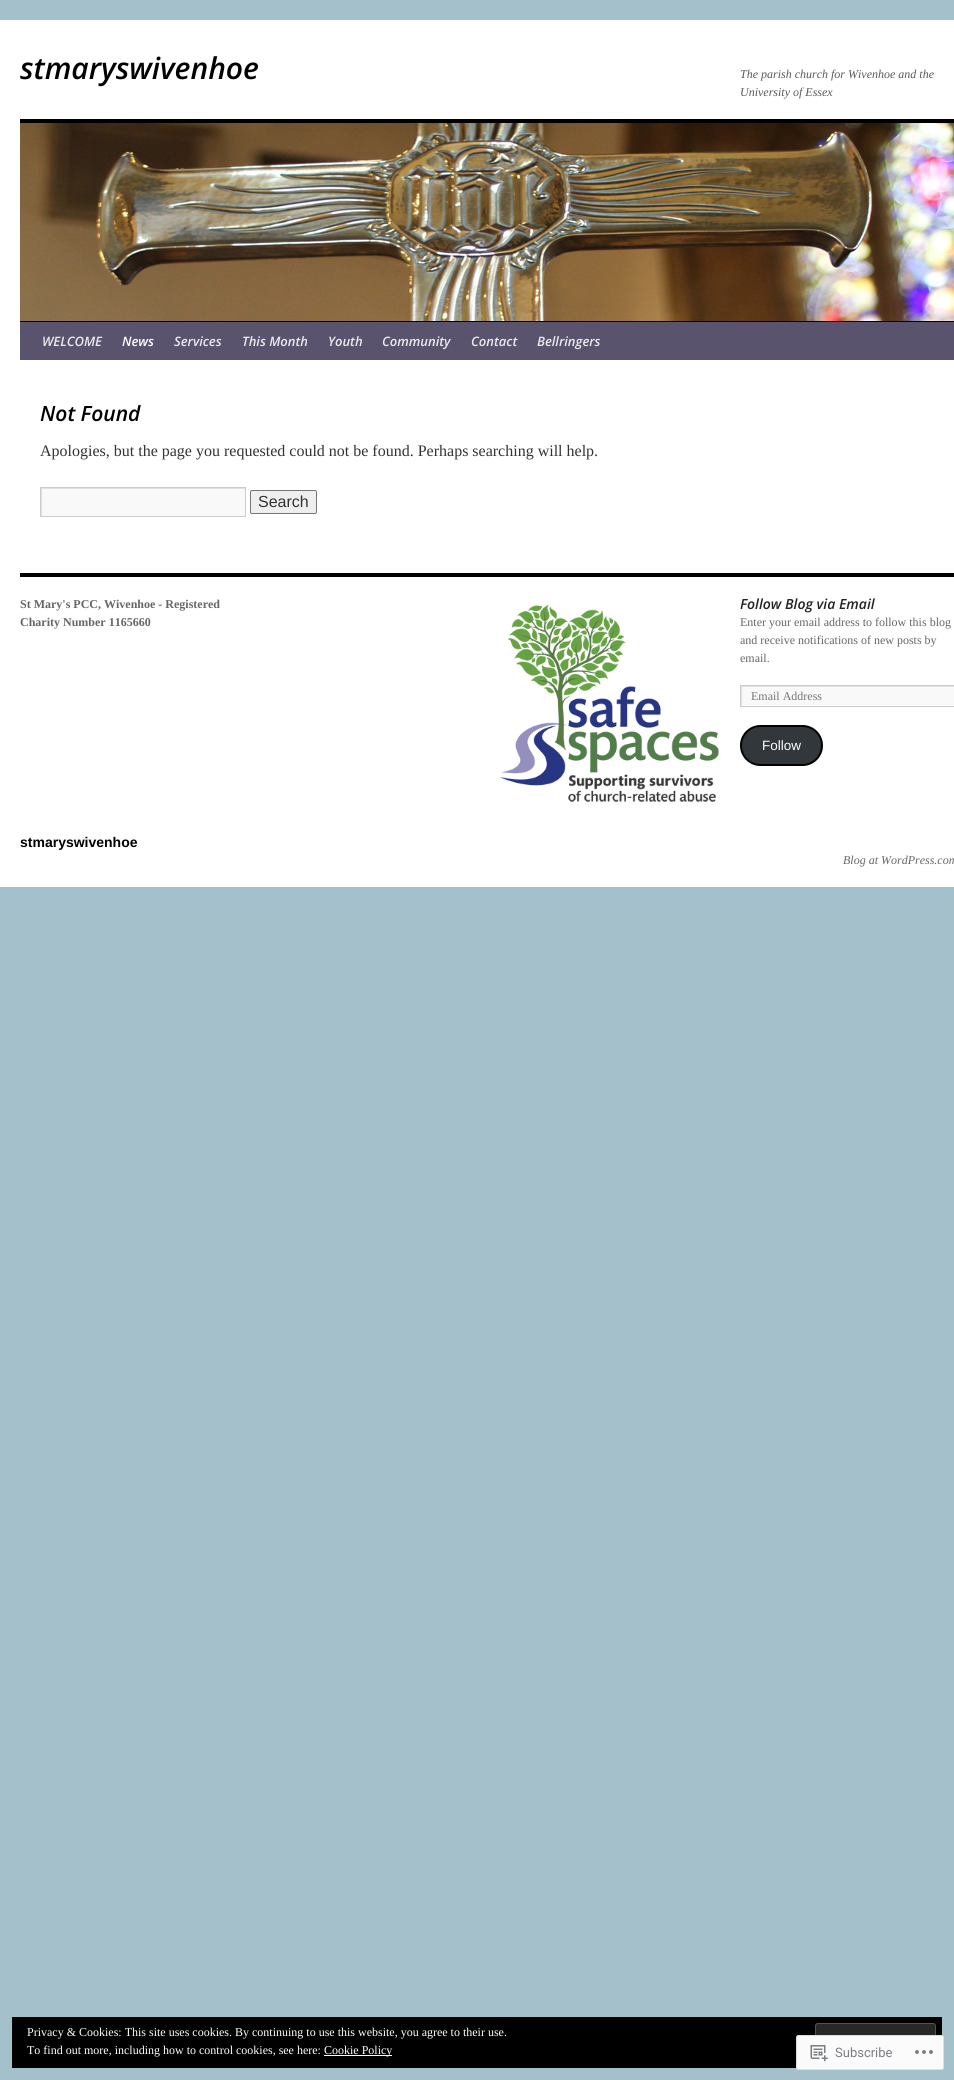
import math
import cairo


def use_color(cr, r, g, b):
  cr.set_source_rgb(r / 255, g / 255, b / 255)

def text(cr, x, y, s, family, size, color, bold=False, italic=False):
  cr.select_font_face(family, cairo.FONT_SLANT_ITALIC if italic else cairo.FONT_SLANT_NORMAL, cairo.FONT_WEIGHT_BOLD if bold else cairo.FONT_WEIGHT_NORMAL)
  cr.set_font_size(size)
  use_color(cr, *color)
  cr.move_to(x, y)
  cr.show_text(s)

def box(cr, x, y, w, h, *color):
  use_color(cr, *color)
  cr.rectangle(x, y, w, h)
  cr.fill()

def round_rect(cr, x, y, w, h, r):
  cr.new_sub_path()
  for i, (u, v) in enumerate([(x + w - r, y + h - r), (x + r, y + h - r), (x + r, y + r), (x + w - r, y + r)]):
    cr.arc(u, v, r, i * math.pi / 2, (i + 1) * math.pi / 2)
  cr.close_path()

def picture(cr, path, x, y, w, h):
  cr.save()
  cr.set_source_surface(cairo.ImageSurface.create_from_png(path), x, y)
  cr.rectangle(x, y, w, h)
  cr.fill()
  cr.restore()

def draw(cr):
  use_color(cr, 163, 192, 203)
  cr.paint()
  box(cr, 0, 20, 954, 867, 255, 255, 255)
  box(cr, 20, 119, 934, 4, 0, 0, 0)
  box(cr, 20, 321, 934, 1, 0, 0, 0)
  picture(cr, "img_01.png", 20, 123, 934, 198)
  box(cr, 20, 322, 934, 38, 90, 83, 110)
  box(cr, 42, 489, 203, 27, 249, 249, 249)
  cr.save()
  cr.rectangle(41, 488, 204, 28)
  cr.clip()
  use_color(cr, 224, 224, 224)
  cr.set_fill_rule(cairo.FILL_RULE_EVEN_ODD)
  cr.new_path()
  cr.move_to(-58, 389)
  cr.line_to(344, 389)
  cr.line_to(344, 615)
  cr.line_to(-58, 615)
  cr.close_path()
  cr.move_to(42, 489)
  cr.line_to(246, 489)
  cr.line_to(246, 517)
  cr.line_to(42, 517)
  cr.close_path()
  cr.fill()
  cr.restore()
  cr.rectangle(40.5, 487.5, 205, 29)
  use_color(cr, 204, 204, 204)
  cr.set_line_width(1)
  cr.stroke()
  use_color(cr, 239, 239, 239)
  round_rect(cr, 250.5, 490.5, 66, 23, 1.5)
  cr.fill_preserve()
  use_color(cr, 118, 118, 118)
  cr.stroke()
  box(cr, 20, 573, 934, 4, 0, 0, 0)
  picture(cr, "img_02.png", 500, 604, 219, 198)
  box(cr, 742, 687, 212, 19, 249, 249, 249)
  cr.save()
  cr.rectangle(741, 686, 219, 20)
  cr.clip()
  use_color(cr, 224, 224, 224)
  cr.set_fill_rule(cairo.FILL_RULE_EVEN_ODD)
  cr.new_path()
  cr.move_to(642, 587)
  cr.line_to(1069, 587)
  cr.line_to(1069, 805)
  cr.line_to(642, 805)
  cr.close_path()
  cr.move_to(742, 687)
  cr.line_to(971, 687)
  cr.line_to(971, 707)
  cr.line_to(742, 707)
  cr.close_path()
  cr.fill()
  cr.restore()
  cr.rectangle(740.5, 685.5, 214, 21)
  use_color(cr, 204, 204, 204)
  cr.stroke()
  use_color(cr, 50, 55, 60)
  round_rect(cr, 741, 726, 81, 39, 19.5)
  cr.fill_preserve()
  use_color(cr, 0, 0, 0)
  cr.set_line_width(2)
  cr.stroke()
  box(cr, 12, 2017, 930, 51, 0, 0, 0)
  use_color(cr, 40, 40, 40)
  round_rect(cr, 815.5, 2023.5, 120, 38, 2.5)
  cr.fill_preserve()
  use_color(cr, 83, 83, 83)
  cr.set_line_width(1)
  cr.stroke()
  box(cr, 324, 2055, 68, 1, 255, 255, 255)
  cr.set_source_rgba(1, 1, 1, 0.98)
  round_rect(cr, 796, 2035, 148, 35, 3)
  cr.fill()
  round_rect(cr, 796.5, 2035.5, 147, 34, 2.5)
  cr.set_source_rgba(0.863, 0.863, 0.871, 0.98)
  cr.stroke()
  picture(cr, "img_03.png", 810, 2045, 18, 17)
  picture(cr, "img_04.png", 915, 2050, 18, 4)
  text(cr, 20, 79, "stmaryswivenhoe", "Open Sans SemiBold", 30, (0, 0, 0), italic=True)
  text(cr, 740, 78, "The parish church for Wivenhoe and the", "Liberation Serif", 12, (89, 89, 89), italic=True)
  text(cr, 740, 96, "University of Essex", "Liberation Serif", 12, (89, 89, 89), italic=True)
  text(cr, 42, 346, "WELCOME", "Open Sans SemiBold", 13, (234, 234, 234), italic=True)
  text(cr, 122, 346, "News", "Open Sans SemiBold", 13, (255, 255, 255), italic=True)
  text(cr, 174, 346, "Services", "Open Sans SemiBold", 13, (234, 234, 234), italic=True)
  text(cr, 242, 346, "This Month", "Open Sans SemiBold", 13, (234, 234, 234), italic=True)
  text(cr, 328, 346, "Youth", "Open Sans SemiBold", 13, (234, 234, 234), italic=True)
  text(cr, 382, 346, "Community", "Open Sans SemiBold", 13, (234, 234, 234), italic=True)
  text(cr, 471, 346, "Contact", "Open Sans SemiBold", 13, (234, 234, 234), italic=True)
  text(cr, 537, 346, "Bellringers", "Open Sans SemiBold", 13, (234, 234, 234), italic=True)
  text(cr, 40, 421, "Not Found", "Open Sans SemiBold", 21, (0, 0, 0), italic=True)
  text(cr, 40, 456, "Apologies, but the page you requested could not be found. Perhaps searching will help.", "Liberation Serif", 16, (51, 51, 51))
  text(cr, 258, 507, "Search", "Liberation Sans", 16, (51, 51, 51))
  text(cr, 20, 608, "St Mary's PCC, Wivenhoe - Registered", "Liberation Serif", 12, (102, 102, 102), bold=True)
  text(cr, 20, 626, "Charity Number 1165660", "Liberation Serif", 12, (102, 102, 102), bold=True)
  text(cr, 740, 609, "Follow Blog via Email", "Open Sans SemiBold", 14, (34, 34, 34), italic=True)
  text(cr, 740, 626, "Enter your email address to follow this blog", "Liberation Serif", 12, (102, 102, 102))
  text(cr, 740, 644, "and receive notifications of new posts by", "Liberation Serif", 12, (102, 102, 102))
  text(cr, 740, 662, "email.", "Liberation Serif", 12, (102, 102, 102))
  text(cr, 751, 700, "Email Address", "Liberation Serif", 12, (117, 117, 117))
  text(cr, 762, 750, "Follow", "Liberation Sans", 13.5, (255, 255, 255))
  text(cr, 20, 847, "stmaryswivenhoe", "Liberation Sans", 14, (0, 0, 0), bold=True)
  text(cr, 843, 864, "Blog at WordPress.com", "Liberation Serif", 12, (102, 102, 102), italic=True)
  text(cr, 27, 2036, "Privacy & Cookies: This site uses cookies. By continuing to use this website, you agree to their use.", "Liberation Serif", 12, (255, 255, 255))
  text(cr, 27, 2054, "To find out more, including how to control cookies, see here:", "Liberation Serif", 12, (255, 255, 255))
  text(cr, 324, 2054, "Cookie Policy", "Liberation Serif", 12, (255, 255, 255))
  text(cr, 835, 2057, "Subscribe", "Roboto", 13, (123, 127, 132))


surface = cairo.ImageSurface(cairo.FORMAT_RGB24, 954, 2080)
cr = cairo.Context(surface)
options = cairo.FontOptions()
options.set_hint_metrics(cairo.HINT_METRICS_OFF)
options.set_hint_style(cairo.HINT_STYLE_NONE)
cr.set_font_options(options)
cr.set_miter_limit(4)
draw(cr)
surface.write_to_png("out.png")
